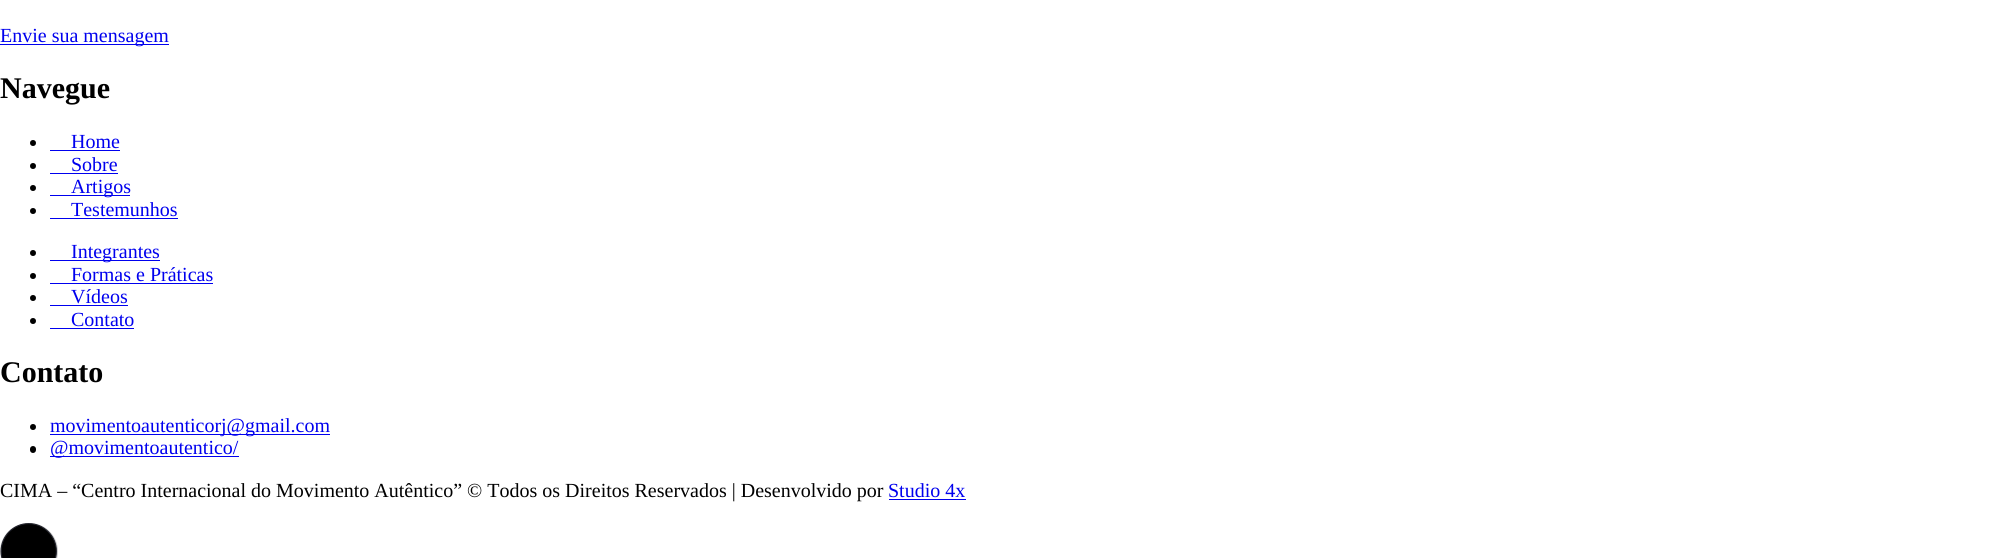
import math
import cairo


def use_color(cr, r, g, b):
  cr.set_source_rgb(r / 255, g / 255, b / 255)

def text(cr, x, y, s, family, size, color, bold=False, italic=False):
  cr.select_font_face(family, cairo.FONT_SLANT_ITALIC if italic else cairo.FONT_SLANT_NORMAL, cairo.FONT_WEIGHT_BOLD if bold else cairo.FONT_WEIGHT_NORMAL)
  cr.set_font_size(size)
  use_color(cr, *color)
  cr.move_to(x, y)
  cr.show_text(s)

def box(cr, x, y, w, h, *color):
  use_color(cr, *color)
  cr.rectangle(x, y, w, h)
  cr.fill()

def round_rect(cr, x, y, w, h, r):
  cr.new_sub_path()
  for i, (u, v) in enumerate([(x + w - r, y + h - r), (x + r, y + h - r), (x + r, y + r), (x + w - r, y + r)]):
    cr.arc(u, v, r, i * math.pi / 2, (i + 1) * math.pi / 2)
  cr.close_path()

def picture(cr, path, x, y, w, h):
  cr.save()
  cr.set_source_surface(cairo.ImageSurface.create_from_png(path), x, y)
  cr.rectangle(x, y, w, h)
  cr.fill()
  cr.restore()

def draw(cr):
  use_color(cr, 255, 255, 255)
  cr.paint()
  box(cr, 0, 44, 169, 1, 0, 0, 238)
  use_color(cr, 0, 0, 0)
  cr.arc(33, 143, 3, 0, 2 * math.pi)
  cr.fill()
  box(cr, 50, 150, 70, 1, 0, 0, 238)
  use_color(cr, 0, 0, 0)
  cr.arc(33, 166, 3, 0, 2 * math.pi)
  cr.fill()
  box(cr, 50, 173, 68, 1, 0, 0, 238)
  use_color(cr, 0, 0, 0)
  cr.arc(33, 188, 3, 0, 2 * math.pi)
  cr.fill()
  box(cr, 50, 195, 80, 1, 0, 0, 238)
  use_color(cr, 0, 0, 0)
  cr.arc(33, 211, 3, 0, 2 * math.pi)
  cr.fill()
  box(cr, 50, 218, 128, 1, 0, 0, 238)
  use_color(cr, 0, 0, 0)
  cr.arc(33, 253, 3, 0, 2 * math.pi)
  cr.fill()
  box(cr, 50, 260, 110, 1, 0, 0, 238)
  use_color(cr, 0, 0, 0)
  cr.arc(33, 276, 3, 0, 2 * math.pi)
  cr.fill()
  box(cr, 50, 283, 163, 1, 0, 0, 238)
  use_color(cr, 0, 0, 0)
  cr.arc(33, 298, 3, 0, 2 * math.pi)
  cr.fill()
  box(cr, 50, 305, 78, 1, 0, 0, 238)
  use_color(cr, 0, 0, 0)
  cr.arc(33, 321, 3, 0, 2 * math.pi)
  cr.fill()
  box(cr, 50, 328, 84, 1, 0, 0, 238)
  use_color(cr, 0, 0, 0)
  cr.arc(33, 427, 3, 0, 2 * math.pi)
  cr.fill()
  box(cr, 50, 434, 280, 1, 0, 0, 238)
  use_color(cr, 0, 0, 0)
  round_rect(cr, 30, 446, 6, 7, 3)
  cr.fill()
  box(cr, 50, 456, 189, 1, 0, 0, 238)
  box(cr, 889, 499, 77, 1, 0, 0, 238)
  round_rect(cr, 1.5, 524.5, 55, 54, 27)
  use_color(cr, 204, 204, 204)
  cr.set_line_width(3)
  cr.stroke()
  picture(cr, "img_01.png", 0, 523, 57, 35)
  text(cr, 0, 42, "Envie sua mensagem", "Liberation Serif", 20, (0, 0, 238))
  text(cr, 0, 98, "Navegue", "Liberation Serif", 30, (0, 0, 0), bold=True)
  text(cr, 71, 148, "Home", "Liberation Serif", 20, (0, 0, 238))
  text(cr, 71, 171, "Sobre", "Liberation Serif", 20, (0, 0, 238))
  text(cr, 71, 193, "Artigos", "Liberation Serif", 20, (0, 0, 238))
  text(cr, 71, 216, "Testemunhos", "Liberation Serif", 20, (0, 0, 238))
  text(cr, 71, 258, "Integrantes", "Liberation Serif", 20, (0, 0, 238))
  text(cr, 71, 281, "Formas e Práticas", "Liberation Serif", 20, (0, 0, 238))
  text(cr, 71, 303, "Vídeos", "Liberation Serif", 20, (0, 0, 238))
  text(cr, 71, 326, "Contato", "Liberation Serif", 20, (0, 0, 238))
  text(cr, 0, 382, "Contato", "Liberation Serif", 30, (0, 0, 0), bold=True)
  text(cr, 50, 432, "movimentoautenticorj@gmail.com", "Liberation Serif", 20, (0, 0, 238))
  text(cr, 50, 454, "@movimentoautentico/", "Liberation Serif", 20, (0, 0, 238))
  text(cr, 0, 497, "CIMA – “Centro Internacional do Movimento Autêntico” © Todos os Direitos Reservados | Desenvolvido por", "Liberation Serif", 20, (0, 0, 0))
  text(cr, 888, 497, "Studio 4x", "Liberation Serif", 20, (0, 0, 238))


surface = cairo.ImageSurface(cairo.FORMAT_RGB24, 2008, 558)
cr = cairo.Context(surface)
options = cairo.FontOptions()
options.set_hint_metrics(cairo.HINT_METRICS_OFF)
options.set_hint_style(cairo.HINT_STYLE_NONE)
cr.set_font_options(options)
cr.set_miter_limit(4)
draw(cr)
surface.write_to_png("out.png")
